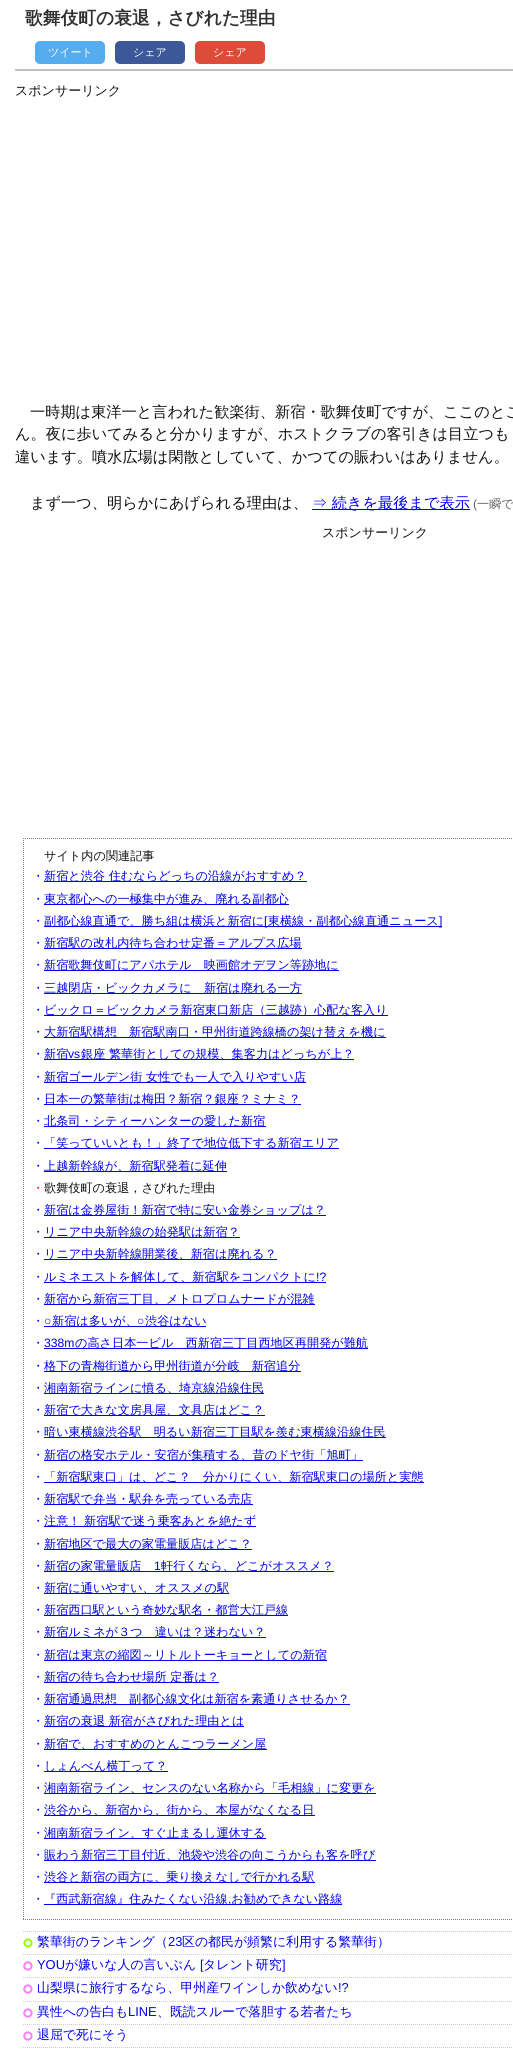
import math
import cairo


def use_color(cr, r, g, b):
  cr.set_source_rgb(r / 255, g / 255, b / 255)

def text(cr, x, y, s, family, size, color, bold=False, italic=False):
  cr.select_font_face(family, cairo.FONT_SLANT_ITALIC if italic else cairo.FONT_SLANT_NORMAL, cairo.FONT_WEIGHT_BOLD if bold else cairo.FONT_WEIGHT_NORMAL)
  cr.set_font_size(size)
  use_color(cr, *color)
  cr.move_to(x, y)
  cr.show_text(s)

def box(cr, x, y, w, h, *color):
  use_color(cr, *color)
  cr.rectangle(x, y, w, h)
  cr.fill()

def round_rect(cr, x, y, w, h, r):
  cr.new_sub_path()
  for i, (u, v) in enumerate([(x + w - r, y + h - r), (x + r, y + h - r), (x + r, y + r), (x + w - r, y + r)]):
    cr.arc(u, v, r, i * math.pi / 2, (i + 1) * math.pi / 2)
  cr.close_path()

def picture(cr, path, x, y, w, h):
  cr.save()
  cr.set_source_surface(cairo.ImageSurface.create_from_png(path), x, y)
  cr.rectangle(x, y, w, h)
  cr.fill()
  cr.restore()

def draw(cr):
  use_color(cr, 255, 255, 255)
  cr.paint()
  box(cr, 15, 69, 498, 2, 192, 192, 192)
  use_color(cr, 85, 172, 238)
  round_rect(cr, 35, 41, 70, 23, 5)
  cr.fill()
  use_color(cr, 59, 89, 152)
  round_rect(cr, 115, 41, 70, 23, 5)
  cr.fill()
  use_color(cr, 221, 75, 57)
  round_rect(cr, 195, 41, 70, 23, 5)
  cr.fill()
  box(cr, 312, 509, 158, 1, 0, 0, 238)
  cr.new_path()
  cr.move_to(23, 838.5)
  cr.line_to(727, 838.5)
  use_color(cr, 128, 128, 128)
  cr.set_line_width(1)
  cr.set_dash([1, 1])
  cr.stroke()
  cr.new_path()
  cr.move_to(23, 1919.5)
  cr.line_to(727, 1919.5)
  cr.stroke()
  cr.new_path()
  cr.move_to(23.5, 838)
  cr.line_to(23.5, 1920)
  cr.stroke()
  box(cr, 44, 881, 263, 1, 0, 0, 238)
  box(cr, 44, 904, 245, 1, 0, 0, 238)
  box(cr, 44, 926, 398, 1, 0, 0, 238)
  box(cr, 44, 948, 258, 1, 0, 0, 238)
  box(cr, 44, 970, 295, 1, 0, 0, 238)
  box(cr, 44, 993, 258, 1, 0, 0, 238)
  box(cr, 44, 1015, 344, 1, 0, 0, 238)
  box(cr, 44, 1037, 342, 1, 0, 0, 238)
  box(cr, 44, 1059, 310, 1, 0, 0, 238)
  box(cr, 44, 1082, 262, 1, 0, 0, 238)
  box(cr, 44, 1104, 257, 1, 0, 0, 238)
  box(cr, 44, 1126, 222, 1, 0, 0, 238)
  box(cr, 44, 1148, 295, 1, 0, 0, 238)
  box(cr, 44, 1171, 183, 1, 0, 0, 238)
  box(cr, 44, 1215, 282, 1, 0, 0, 238)
  box(cr, 44, 1237, 196, 1, 0, 0, 238)
  box(cr, 44, 1259, 233, 1, 0, 0, 238)
  box(cr, 44, 1282, 282, 1, 0, 0, 238)
  box(cr, 44, 1304, 271, 1, 0, 0, 238)
  box(cr, 44, 1326, 162, 1, 0, 0, 238)
  box(cr, 44, 1348, 324, 1, 0, 0, 238)
  box(cr, 44, 1371, 257, 1, 0, 0, 238)
  box(cr, 44, 1393, 220, 1, 0, 0, 238)
  box(cr, 44, 1415, 221, 1, 0, 0, 238)
  box(cr, 44, 1437, 342, 1, 0, 0, 238)
  box(cr, 44, 1460, 319, 1, 0, 0, 238)
  box(cr, 44, 1482, 380, 1, 0, 0, 238)
  box(cr, 44, 1504, 209, 1, 0, 0, 238)
  box(cr, 44, 1526, 212, 1, 0, 0, 238)
  box(cr, 44, 1549, 208, 1, 0, 0, 238)
  box(cr, 44, 1571, 290, 1, 0, 0, 238)
  box(cr, 44, 1593, 185, 1, 0, 0, 238)
  box(cr, 44, 1615, 244, 1, 0, 0, 238)
  box(cr, 44, 1637, 222, 1, 0, 0, 238)
  box(cr, 44, 1660, 283, 1, 0, 0, 238)
  box(cr, 44, 1682, 175, 1, 0, 0, 238)
  box(cr, 44, 1704, 306, 1, 0, 0, 238)
  box(cr, 44, 1726, 200, 1, 0, 0, 238)
  box(cr, 44, 1749, 223, 1, 0, 0, 238)
  box(cr, 44, 1771, 124, 1, 0, 0, 238)
  box(cr, 44, 1793, 332, 1, 0, 0, 238)
  box(cr, 44, 1815, 271, 1, 0, 0, 238)
  box(cr, 44, 1838, 222, 1, 0, 0, 238)
  box(cr, 44, 1860, 332, 1, 0, 0, 238)
  box(cr, 44, 1882, 271, 1, 0, 0, 238)
  box(cr, 44, 1904, 298, 1, 0, 0, 238)
  cr.new_path()
  cr.move_to(23, 1931.5)
  cr.line_to(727, 1931.5)
  use_color(cr, 204, 204, 204)
  cr.stroke()
  picture(cr, "img_01.png", 23, 1938, 10, 10)
  cr.new_path()
  cr.move_to(23, 1954.5)
  cr.line_to(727, 1954.5)
  cr.stroke()
  picture(cr, "img_02.png", 23, 1961, 10, 10)
  cr.new_path()
  cr.move_to(23, 1977.5)
  cr.line_to(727, 1977.5)
  cr.stroke()
  picture(cr, "img_02.png", 23, 1984, 10, 10)
  cr.new_path()
  cr.move_to(23, 2001.5)
  cr.line_to(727, 2001.5)
  cr.stroke()
  picture(cr, "img_02.png", 23, 2008, 10, 10)
  cr.new_path()
  cr.move_to(23, 2024.5)
  cr.line_to(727, 2024.5)
  cr.stroke()
  picture(cr, "img_02.png", 23, 2031, 10, 10)
  cr.new_path()
  cr.move_to(23, 2047.5)
  cr.line_to(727, 2047.5)
  cr.stroke()
  text(cr, 25, 24, "歌舞伎町の衰退，さびれた理由", "WenQuanYi Zen Hei", 17.75, (48, 48, 48), bold=True)
  text(cr, 48, 56, "ツイート", "WenQuanYi Zen Hei Medium", 11, (255, 255, 255))
  text(cr, 133, 56, "シェア", "WenQuanYi Zen Hei Medium", 11, (255, 255, 255))
  text(cr, 213, 56, "シェア", "WenQuanYi Zen Hei Medium", 11, (255, 255, 255))
  text(cr, 15, 95, "スポンサーリンク", "WenQuanYi Zen Hei Medium", 13, (16, 16, 16))
  text(cr, 30, 417, "一時期は東洋一と言われた歓楽街、新宿・歌舞伎町ですが、ここのとこ", "WenQuanYi Zen Hei Medium", 15.2, (16, 16, 16))
  text(cr, 15, 439, "ん。夜に歩いてみると分かりますが、ホストクラブの客引きは目立つも", "WenQuanYi Zen Hei Medium", 15.2, (16, 16, 16))
  text(cr, 15, 462, "違います。噴水広場は閑散としていて、かつての賑わいはありません。", "WenQuanYi Zen Hei Medium", 15.2, (16, 16, 16))
  text(cr, 30, 508, "まず一つ、明らかにあげられる理由は、", "WenQuanYi Zen Hei Medium", 15.2, (16, 16, 16))
  text(cr, 312, 508, "⇒ 続きを最後まで表示", "WenQuanYi Zen Hei Medium", 15.2, (0, 0, 238))
  text(cr, 473, 508, "(", "Liberation Sans", 12.15, (96, 96, 96))
  text(cr, 477, 508, "一瞬で", "WenQuanYi Zen Hei Medium", 12.15, (96, 96, 96))
  text(cr, 322, 537, "スポンサーリンク", "WenQuanYi Zen Hei Medium", 13, (16, 16, 16))
  text(cr, 44, 860, "サイト内の関連記事", "WenQuanYi Zen Hei Medium", 12.15, (16, 16, 16))
  text(cr, 32, 880, "・", "WenQuanYi Zen Hei Medium", 12.15, (0, 0, 255))
  text(cr, 44, 880, "新宿と渋谷 住むならどっちの沿線がおすすめ？", "WenQuanYi Zen Hei Medium", 12.15, (0, 0, 238))
  text(cr, 32, 903, "・", "WenQuanYi Zen Hei Medium", 12.15, (0, 0, 255))
  text(cr, 44, 903, "東京都心への一極集中が進み、廃れる副都心", "WenQuanYi Zen Hei Medium", 12.15, (0, 0, 238))
  text(cr, 44, 925, "副都心線直通で、勝ち組は横浜と新宿に 東横線・副都心線直通ニュース", "WenQuanYi Zen Hei Medium", 12.15, (0, 0, 238))
  text(cr, 32, 925, "・", "WenQuanYi Zen Hei Medium", 12.15, (0, 0, 255))
  text(cr, 264, 925, "[", "Liberation Sans", 12.15, (0, 0, 238))
  text(cr, 439, 925, "]", "Liberation Sans", 12.15, (0, 0, 238))
  text(cr, 32, 947, "・", "WenQuanYi Zen Hei Medium", 12.15, (0, 0, 255))
  text(cr, 44, 947, "新宿駅の改札内待ち合わせ定番＝アルプス広場", "WenQuanYi Zen Hei Medium", 12.15, (0, 0, 238))
  text(cr, 32, 969, "・", "WenQuanYi Zen Hei Medium", 12.15, (0, 0, 255))
  text(cr, 44, 969, "新宿歌舞伎町にアパホテル　映画館オデヲン等跡地に", "WenQuanYi Zen Hei Medium", 12.15, (0, 0, 238))
  text(cr, 32, 992, "・", "WenQuanYi Zen Hei Medium", 12.15, (0, 0, 255))
  text(cr, 44, 992, "三越閉店・ビックカメラに　新宿は廃れる一方", "WenQuanYi Zen Hei Medium", 12.15, (0, 0, 238))
  text(cr, 32, 1014, "・", "WenQuanYi Zen Hei Medium", 12.15, (0, 0, 255))
  text(cr, 44, 1014, "ビックロ＝ビックカメラ新宿東口新店（三越跡）心配な客入り", "WenQuanYi Zen Hei Medium", 12.15, (0, 0, 238))
  text(cr, 32, 1036, "・", "WenQuanYi Zen Hei Medium", 12.15, (0, 0, 255))
  text(cr, 44, 1036, "大新宿駅構想　新宿駅南口・甲州街道跨線橋の架け替えを機に", "WenQuanYi Zen Hei Medium", 12.15, (0, 0, 238))
  text(cr, 32, 1058, "・", "WenQuanYi Zen Hei Medium", 12.15, (0, 0, 255))
  text(cr, 44, 1058, "新宿", "WenQuanYi Zen Hei Medium", 12.15, (0, 0, 238))
  text(cr, 68, 1058, "vs", "Liberation Sans", 12.15, (0, 0, 238))
  text(cr, 81, 1058, "銀座 繁華街としての規模、集客力はどっちが上？", "WenQuanYi Zen Hei Medium", 12.15, (0, 0, 238))
  text(cr, 32, 1081, "・", "WenQuanYi Zen Hei Medium", 12.15, (0, 0, 255))
  text(cr, 44, 1081, "新宿ゴールデン街 女性でも一人で入りやすい店", "WenQuanYi Zen Hei Medium", 12.15, (0, 0, 238))
  text(cr, 32, 1103, "・", "WenQuanYi Zen Hei Medium", 12.15, (0, 0, 255))
  text(cr, 44, 1103, "日本一の繁華街は梅田？新宿？銀座？ミナミ？", "WenQuanYi Zen Hei Medium", 12.15, (0, 0, 238))
  text(cr, 32, 1125, "・", "WenQuanYi Zen Hei Medium", 12.15, (0, 0, 255))
  text(cr, 44, 1125, "北条司・シティーハンターの愛した新宿", "WenQuanYi Zen Hei Medium", 12.15, (0, 0, 238))
  text(cr, 32, 1147, "・", "WenQuanYi Zen Hei Medium", 12.15, (0, 0, 255))
  text(cr, 44, 1147, "「笑っていいとも！」終了で地位低下する新宿エリア", "WenQuanYi Zen Hei Medium", 12.15, (0, 0, 238))
  text(cr, 32, 1170, "・", "WenQuanYi Zen Hei Medium", 12.15, (0, 0, 255))
  text(cr, 44, 1170, "上越新幹線が、新宿駅発着に延伸", "WenQuanYi Zen Hei Medium", 12.15, (0, 0, 238))
  text(cr, 32, 1192, "・", "WenQuanYi Zen Hei Medium", 12.15, (255, 0, 0))
  text(cr, 44, 1192, "歌舞伎町の衰退，さびれた理由", "WenQuanYi Zen Hei Medium", 12.15, (16, 16, 16))
  text(cr, 32, 1214, "・", "WenQuanYi Zen Hei Medium", 12.15, (0, 0, 255))
  text(cr, 44, 1214, "新宿は金券屋街！新宿で特に安い金券ショップは？", "WenQuanYi Zen Hei Medium", 12.15, (0, 0, 238))
  text(cr, 32, 1236, "・", "WenQuanYi Zen Hei Medium", 12.15, (0, 0, 255))
  text(cr, 44, 1236, "リニア中央新幹線の始発駅は新宿？", "WenQuanYi Zen Hei Medium", 12.15, (0, 0, 238))
  text(cr, 32, 1258, "・", "WenQuanYi Zen Hei Medium", 12.15, (0, 0, 255))
  text(cr, 44, 1258, "リニア中央新幹線開業後、新宿は廃れる？", "WenQuanYi Zen Hei Medium", 12.15, (0, 0, 238))
  text(cr, 32, 1281, "・", "WenQuanYi Zen Hei Medium", 12.15, (0, 0, 255))
  text(cr, 44, 1281, "ルミネエストを解体して、新宿駅をコンパクトに", "WenQuanYi Zen Hei Medium", 12.15, (0, 0, 238))
  text(cr, 316, 1281, "!?", "Liberation Sans", 12.15, (0, 0, 238))
  text(cr, 32, 1303, "・", "WenQuanYi Zen Hei Medium", 12.15, (0, 0, 255))
  text(cr, 44, 1303, "新宿から新宿三丁目、メトロプロムナードが混雑", "WenQuanYi Zen Hei Medium", 12.15, (0, 0, 238))
  text(cr, 32, 1325, "・", "WenQuanYi Zen Hei Medium", 12.15, (0, 0, 255))
  text(cr, 44, 1325, "○", "Liberation Sans", 12.15, (0, 0, 238))
  text(cr, 52, 1325, "新宿は多いが、", "WenQuanYi Zen Hei Medium", 12.15, (0, 0, 238))
  text(cr, 137, 1325, "○", "Liberation Sans", 12.15, (0, 0, 238))
  text(cr, 145, 1325, "渋谷はない", "WenQuanYi Zen Hei Medium", 12.15, (0, 0, 238))
  text(cr, 32, 1347, "・", "WenQuanYi Zen Hei Medium", 12.15, (0, 0, 255))
  text(cr, 44, 1347, "338m", "Liberation Sans", 12.15, (0, 0, 238))
  text(cr, 75, 1347, "の高さ日本一ビル　西新宿三丁目西地区再開発が難航", "WenQuanYi Zen Hei Medium", 12.15, (0, 0, 238))
  text(cr, 32, 1370, "・", "WenQuanYi Zen Hei Medium", 12.15, (0, 0, 255))
  text(cr, 44, 1370, "格下の青梅街道から甲州街道が分岐　新宿追分", "WenQuanYi Zen Hei Medium", 12.15, (0, 0, 238))
  text(cr, 32, 1392, "・", "WenQuanYi Zen Hei Medium", 12.15, (0, 0, 255))
  text(cr, 44, 1392, "湘南新宿ラインに憤る、埼京線沿線住民", "WenQuanYi Zen Hei Medium", 12.15, (0, 0, 238))
  text(cr, 32, 1414, "・", "WenQuanYi Zen Hei Medium", 12.15, (0, 0, 255))
  text(cr, 44, 1414, "新宿で大きな文房具屋、文具店はどこ？", "WenQuanYi Zen Hei Medium", 12.15, (0, 0, 238))
  text(cr, 32, 1436, "・", "WenQuanYi Zen Hei Medium", 12.15, (0, 0, 255))
  text(cr, 44, 1436, "暗い東横線渋谷駅　明るい新宿三丁目駅を羨む東横線沿線住民", "WenQuanYi Zen Hei Medium", 12.15, (0, 0, 238))
  text(cr, 32, 1459, "・", "WenQuanYi Zen Hei Medium", 12.15, (0, 0, 255))
  text(cr, 44, 1459, "新宿の格安ホテル・安宿が集積する、昔のドヤ街「旭町」", "WenQuanYi Zen Hei Medium", 12.15, (0, 0, 238))
  text(cr, 32, 1481, "・", "WenQuanYi Zen Hei Medium", 12.15, (0, 0, 255))
  text(cr, 44, 1481, "「新宿駅東口」は、どこ？　分かりにくい、新宿駅東口の場所と実態", "WenQuanYi Zen Hei Medium", 12.15, (0, 0, 238))
  text(cr, 32, 1503, "・", "WenQuanYi Zen Hei Medium", 12.15, (0, 0, 255))
  text(cr, 44, 1503, "新宿駅で弁当・駅弁を売っている売店", "WenQuanYi Zen Hei Medium", 12.15, (0, 0, 238))
  text(cr, 32, 1525, "・", "WenQuanYi Zen Hei Medium", 12.15, (0, 0, 255))
  text(cr, 44, 1525, "注意！ 新宿駅で迷う乗客あとを絶たず", "WenQuanYi Zen Hei Medium", 12.15, (0, 0, 238))
  text(cr, 32, 1548, "・", "WenQuanYi Zen Hei Medium", 12.15, (0, 0, 255))
  text(cr, 44, 1548, "新宿地区で最大の家電量販店はどこ？", "WenQuanYi Zen Hei Medium", 12.15, (0, 0, 238))
  text(cr, 32, 1570, "・", "WenQuanYi Zen Hei Medium", 12.15, (0, 0, 255))
  text(cr, 44, 1570, "新宿の家電量販店", "WenQuanYi Zen Hei Medium", 12.15, (0, 0, 238))
  text(cr, 154, 1570, "1", "Liberation Sans", 12.15, (0, 0, 238))
  text(cr, 161, 1570, "軒行くなら、どこがオススメ？", "WenQuanYi Zen Hei Medium", 12.15, (0, 0, 238))
  text(cr, 32, 1592, "・", "WenQuanYi Zen Hei Medium", 12.15, (0, 0, 255))
  text(cr, 44, 1592, "新宿に通いやすい、オススメの駅", "WenQuanYi Zen Hei Medium", 12.15, (0, 0, 238))
  text(cr, 32, 1614, "・", "WenQuanYi Zen Hei Medium", 12.15, (0, 0, 255))
  text(cr, 44, 1614, "新宿西口駅という奇妙な駅名・都営大江戸線", "WenQuanYi Zen Hei Medium", 12.15, (0, 0, 238))
  text(cr, 32, 1636, "・", "WenQuanYi Zen Hei Medium", 12.15, (0, 0, 255))
  text(cr, 44, 1636, "新宿ルミネが３つ　違いは？迷わない？", "WenQuanYi Zen Hei Medium", 12.15, (0, 0, 238))
  text(cr, 32, 1659, "・", "WenQuanYi Zen Hei Medium", 12.15, (0, 0, 255))
  text(cr, 44, 1659, "新宿は東京の縮図～リトルトーキョーとしての新宿", "WenQuanYi Zen Hei Medium", 12.15, (0, 0, 238))
  text(cr, 32, 1681, "・", "WenQuanYi Zen Hei Medium", 12.15, (0, 0, 255))
  text(cr, 44, 1681, "新宿の待ち合わせ場所 定番は？", "WenQuanYi Zen Hei Medium", 12.15, (0, 0, 238))
  text(cr, 32, 1703, "・", "WenQuanYi Zen Hei Medium", 12.15, (0, 0, 255))
  text(cr, 44, 1703, "新宿通過思想　副都心線文化は新宿を素通りさせるか？", "WenQuanYi Zen Hei Medium", 12.15, (0, 0, 238))
  text(cr, 32, 1725, "・", "WenQuanYi Zen Hei Medium", 12.15, (0, 0, 255))
  text(cr, 44, 1725, "新宿の衰退 新宿がさびれた理由とは", "WenQuanYi Zen Hei Medium", 12.15, (0, 0, 238))
  text(cr, 32, 1748, "・", "WenQuanYi Zen Hei Medium", 12.15, (0, 0, 255))
  text(cr, 44, 1748, "新宿で、おすすめのとんこつラーメン屋", "WenQuanYi Zen Hei Medium", 12.15, (0, 0, 238))
  text(cr, 32, 1770, "・", "WenQuanYi Zen Hei Medium", 12.15, (0, 0, 255))
  text(cr, 44, 1770, "しょんべん横丁って？", "WenQuanYi Zen Hei Medium", 12.15, (0, 0, 238))
  text(cr, 32, 1792, "・", "WenQuanYi Zen Hei Medium", 12.15, (0, 0, 255))
  text(cr, 44, 1792, "湘南新宿ライン、センスのない名称から「毛相線」に変更を", "WenQuanYi Zen Hei Medium", 12.15, (0, 0, 238))
  text(cr, 32, 1814, "・", "WenQuanYi Zen Hei Medium", 12.15, (0, 0, 255))
  text(cr, 44, 1814, "渋谷から、新宿から、街から、本屋がなくなる日", "WenQuanYi Zen Hei Medium", 12.15, (0, 0, 238))
  text(cr, 32, 1837, "・", "WenQuanYi Zen Hei Medium", 12.15, (0, 0, 255))
  text(cr, 44, 1837, "湘南新宿ライン、すぐ止まるし運休する", "WenQuanYi Zen Hei Medium", 12.15, (0, 0, 238))
  text(cr, 32, 1859, "・", "WenQuanYi Zen Hei Medium", 12.15, (0, 0, 255))
  text(cr, 44, 1859, "賑わう新宿三丁目付近、池袋や渋谷の向こうからも客を呼び", "WenQuanYi Zen Hei Medium", 12.15, (0, 0, 238))
  text(cr, 32, 1881, "・", "WenQuanYi Zen Hei Medium", 12.15, (0, 0, 255))
  text(cr, 44, 1881, "渋谷と新宿の両方に、乗り換えなしで行かれる駅", "WenQuanYi Zen Hei Medium", 12.15, (0, 0, 238))
  text(cr, 32, 1903, "・", "WenQuanYi Zen Hei Medium", 12.15, (0, 0, 255))
  text(cr, 44, 1903, "『西武新宿線』住みたくない沿線 お勧めできない路線", "WenQuanYi Zen Hei Medium", 12.15, (0, 0, 238))
  text(cr, 228, 1903, ",", "Liberation Sans", 12.15, (0, 0, 238))
  text(cr, 37, 1946, "繁華街のランキング（", "WenQuanYi Zen Hei Medium", 12.9, (0, 0, 238))
  text(cr, 168, 1946, "23", "Liberation Sans", 12.9, (0, 0, 238))
  text(cr, 182, 1946, "区の都民が頻繁に利用する繁華街）", "WenQuanYi Zen Hei Medium", 12.9, (0, 0, 238))
  text(cr, 37, 1969, "YOU", "Liberation Sans", 12.9, (0, 0, 238))
  text(cr, 65, 1969, "が嫌いな人の言いぶん", "WenQuanYi Zen Hei Medium", 12.9, (0, 0, 238))
  text(cr, 200, 1969, "[", "Liberation Sans", 12.9, (0, 0, 238))
  text(cr, 203, 1969, "タレント研究", "WenQuanYi Zen Hei Medium", 12.9, (0, 0, 238))
  text(cr, 282, 1969, "]", "Liberation Sans", 12.9, (0, 0, 238))
  text(cr, 37, 1992, "山梨県に旅行するなら、甲州産ワインしか飲めない", "WenQuanYi Zen Hei Medium", 12.9, (0, 0, 238))
  text(cr, 338, 1992, "!?", "Liberation Sans", 12.9, (0, 0, 238))
  text(cr, 37, 2016, "異性への告白も", "WenQuanYi Zen Hei Medium", 12.9, (0, 0, 238))
  text(cr, 128, 2016, "LINE", "Liberation Sans", 12.9, (0, 0, 238))
  text(cr, 157, 2016, "、既読スルーで落胆する若者たち", "WenQuanYi Zen Hei Medium", 12.9, (0, 0, 238))
  text(cr, 37, 2039, "退屈で死にそう", "WenQuanYi Zen Hei Medium", 12.9, (0, 0, 238))


surface = cairo.ImageSurface(cairo.FORMAT_RGB24, 513, 2053)
cr = cairo.Context(surface)
options = cairo.FontOptions()
options.set_hint_metrics(cairo.HINT_METRICS_OFF)
options.set_hint_style(cairo.HINT_STYLE_NONE)
cr.set_font_options(options)
cr.set_miter_limit(4)
draw(cr)
surface.write_to_png("out.png")
